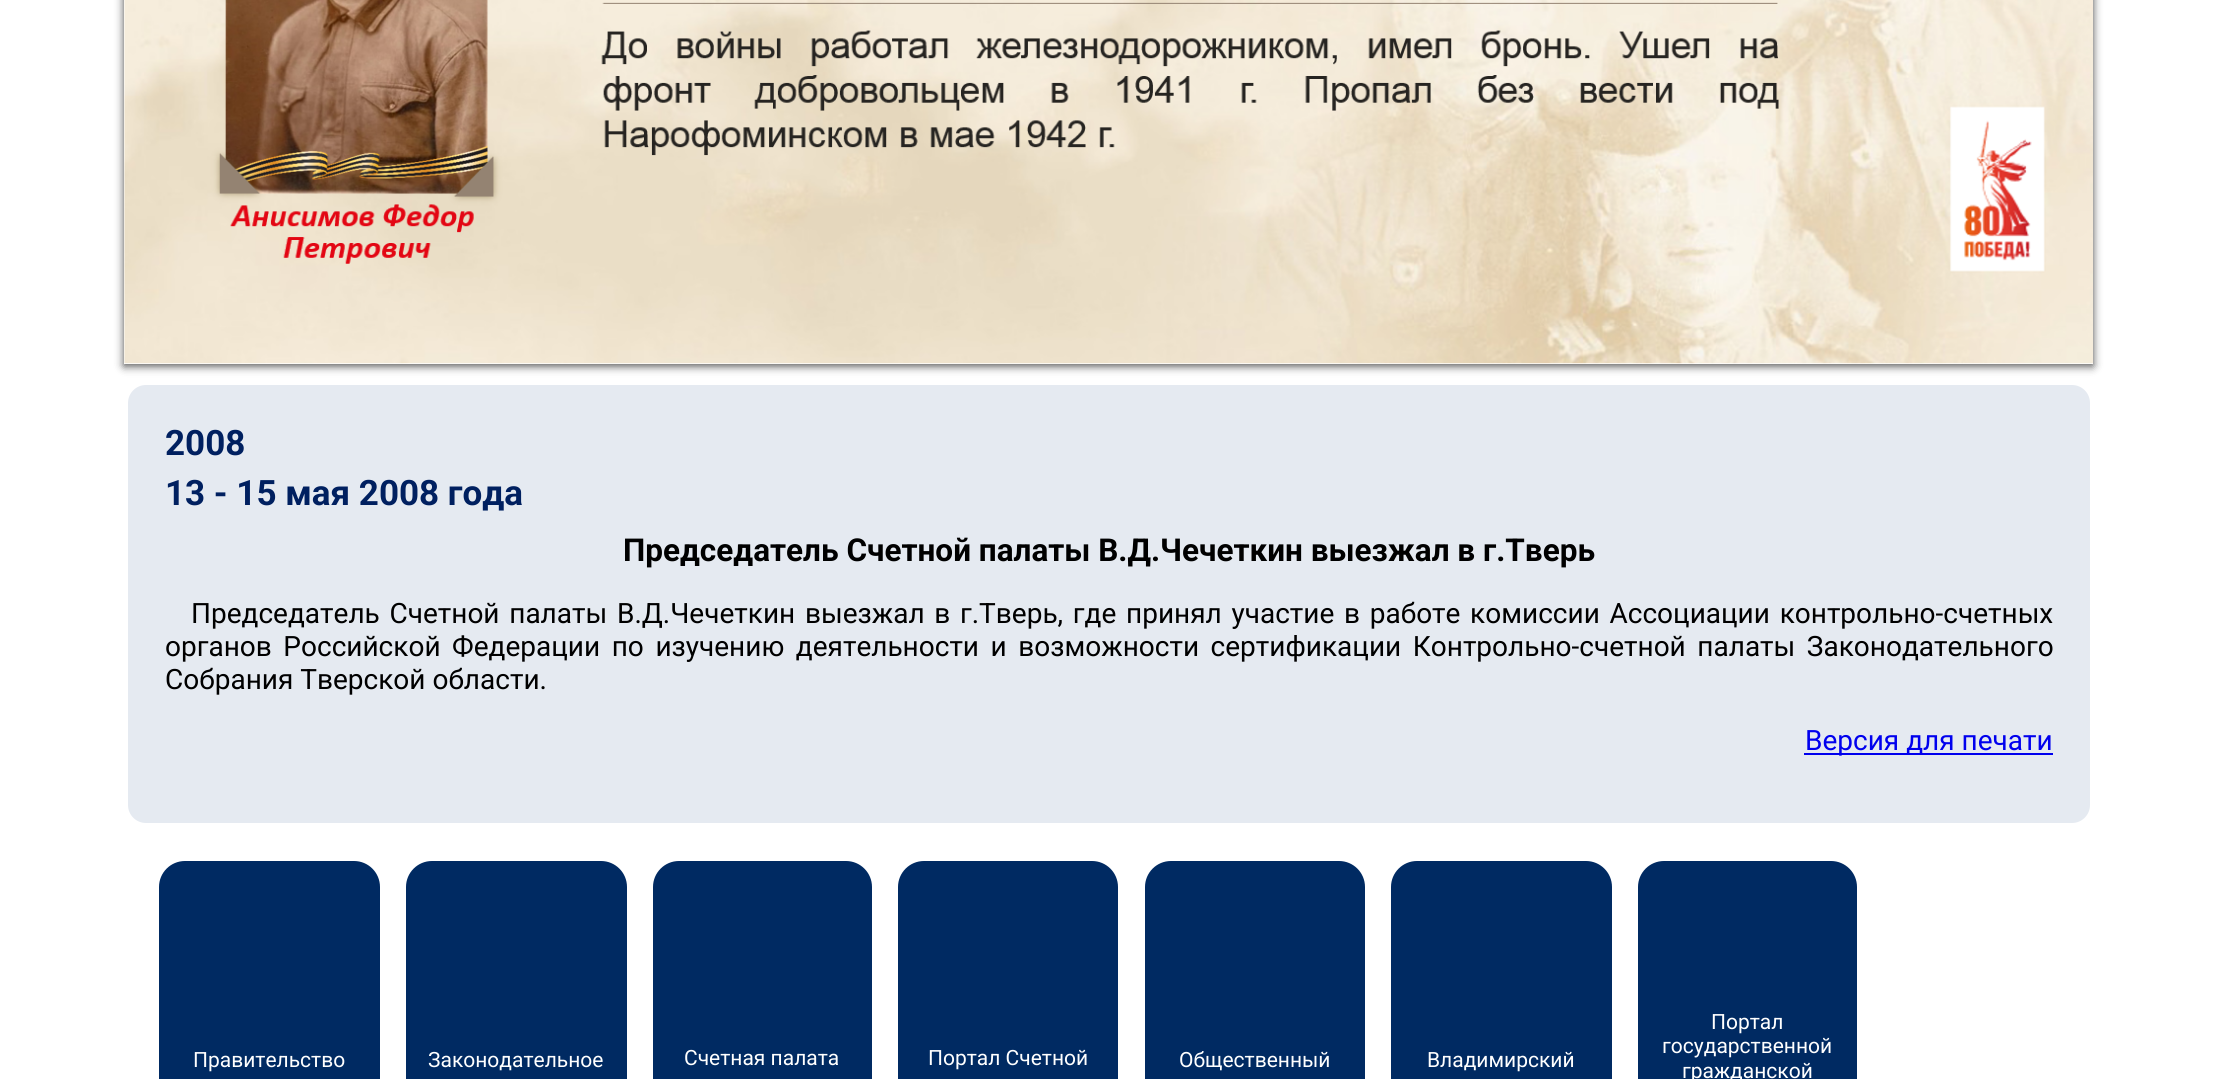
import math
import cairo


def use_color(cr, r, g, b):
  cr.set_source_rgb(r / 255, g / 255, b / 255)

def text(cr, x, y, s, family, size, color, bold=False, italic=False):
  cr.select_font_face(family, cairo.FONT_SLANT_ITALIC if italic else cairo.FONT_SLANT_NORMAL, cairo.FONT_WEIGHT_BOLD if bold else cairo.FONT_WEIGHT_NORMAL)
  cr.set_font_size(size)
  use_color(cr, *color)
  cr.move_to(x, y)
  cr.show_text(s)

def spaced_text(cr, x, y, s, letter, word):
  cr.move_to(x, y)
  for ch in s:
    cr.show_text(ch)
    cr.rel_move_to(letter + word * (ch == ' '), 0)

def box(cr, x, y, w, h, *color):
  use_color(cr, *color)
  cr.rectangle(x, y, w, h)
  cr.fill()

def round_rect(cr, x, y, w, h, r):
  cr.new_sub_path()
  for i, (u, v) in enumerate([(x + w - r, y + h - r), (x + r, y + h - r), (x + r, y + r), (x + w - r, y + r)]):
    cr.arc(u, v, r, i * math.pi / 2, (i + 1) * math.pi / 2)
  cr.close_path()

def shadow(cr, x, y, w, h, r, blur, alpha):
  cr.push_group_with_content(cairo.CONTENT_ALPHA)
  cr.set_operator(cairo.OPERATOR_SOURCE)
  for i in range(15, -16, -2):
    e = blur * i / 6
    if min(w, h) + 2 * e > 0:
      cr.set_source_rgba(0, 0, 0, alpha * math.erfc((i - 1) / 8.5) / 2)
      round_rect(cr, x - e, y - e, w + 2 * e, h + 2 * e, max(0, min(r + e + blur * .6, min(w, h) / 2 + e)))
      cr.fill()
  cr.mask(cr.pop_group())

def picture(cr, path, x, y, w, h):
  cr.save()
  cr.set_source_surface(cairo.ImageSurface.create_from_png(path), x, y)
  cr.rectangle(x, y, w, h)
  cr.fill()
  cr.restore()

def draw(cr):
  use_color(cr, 255, 255, 255)
  cr.paint()
  use_color(cr, 74, 74, 74)
  shadow(cr, 124, -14, 1969, 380, 0, 4.5, 1)
  box(cr, 124, 0, 1969, 364, 255, 255, 255)
  picture(cr, "img_01.png", 124, 0, 1969, 364)
  use_color(cr, 229, 234, 241)
  round_rect(cr, 128, 385, 1962, 438, 18)
  cr.fill()
  box(cr, 1804, 753, 249, 2, 0, 0, 238)
  use_color(cr, 0, 42, 98)
  round_rect(cr, 159, 861, 221, 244, 26)
  cr.fill()
  round_rect(cr, 406, 861, 221, 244, 26)
  cr.fill()
  round_rect(cr, 653, 861, 219, 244, 26)
  cr.fill()
  round_rect(cr, 898, 861, 220, 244, 26)
  cr.fill()
  round_rect(cr, 1145, 861, 220, 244, 26)
  cr.fill()
  round_rect(cr, 1391, 861, 221, 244, 26)
  cr.fill()
  round_rect(cr, 1638, 861, 219, 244, 26)
  cr.fill()
  text(cr, 165, 455, "2008", "Roboto", 35, (0, 32, 96), bold=True)
  text(cr, 165, 505, "13 - 15 мая 2008 года", "Roboto", 35, (0, 32, 96), bold=True)
  text(cr, 623, 561, "Председатель Счетной палаты В.Д.Чечеткин выезжал в г.Тверь", "Roboto", 31.5, (0, 0, 0), bold=True)
  cr.select_font_face("Roboto")
  cr.set_font_size(28)
  spaced_text(cr, 191, 623, "Председатель Счетной палаты В.Д.Чечеткин выезжал в г.Тверь, где принял участие в работе комиссии Ассоциации контрольно-счетных", 0, 2.75)
  spaced_text(cr, 165, 656, "органов Российской Федерации по изучению деятельности и возможности сертификации Контрольно-счетной палаты Законодательного", 0, 4.6)
  text(cr, 165, 689, "Собрания Тверской области.", "Roboto", 28, (0, 0, 0))
  text(cr, 1805, 750, "Версия для печати", "Roboto", 28, (0, 0, 238))
  text(cr, 193, 1067, "Правительство", "Roboto", 21, (255, 255, 255))
  text(cr, 428, 1067, "Законодательное", "Roboto", 21, (255, 255, 255))
  text(cr, 684, 1065, "Счетная палата", "Roboto", 21, (255, 255, 255))
  text(cr, 928, 1065, "Портал Счетной", "Roboto", 21, (255, 255, 255))
  text(cr, 1179, 1067, "Общественный", "Roboto", 21, (255, 255, 255))
  text(cr, 1427, 1067, "Владимирский", "Roboto", 21, (255, 255, 255))
  text(cr, 1711, 1029, "Портал", "Roboto", 21, (255, 255, 255))
  text(cr, 1662, 1053, "государственной", "Roboto", 21, (255, 255, 255))
  text(cr, 1682, 1078, "гражданской", "Roboto", 21, (255, 255, 255))


surface = cairo.ImageSurface(cairo.FORMAT_RGB24, 2216, 1079)
cr = cairo.Context(surface)
options = cairo.FontOptions()
options.set_hint_metrics(cairo.HINT_METRICS_OFF)
options.set_hint_style(cairo.HINT_STYLE_NONE)
cr.set_font_options(options)
cr.set_miter_limit(4)
draw(cr)
surface.write_to_png("out.png")
